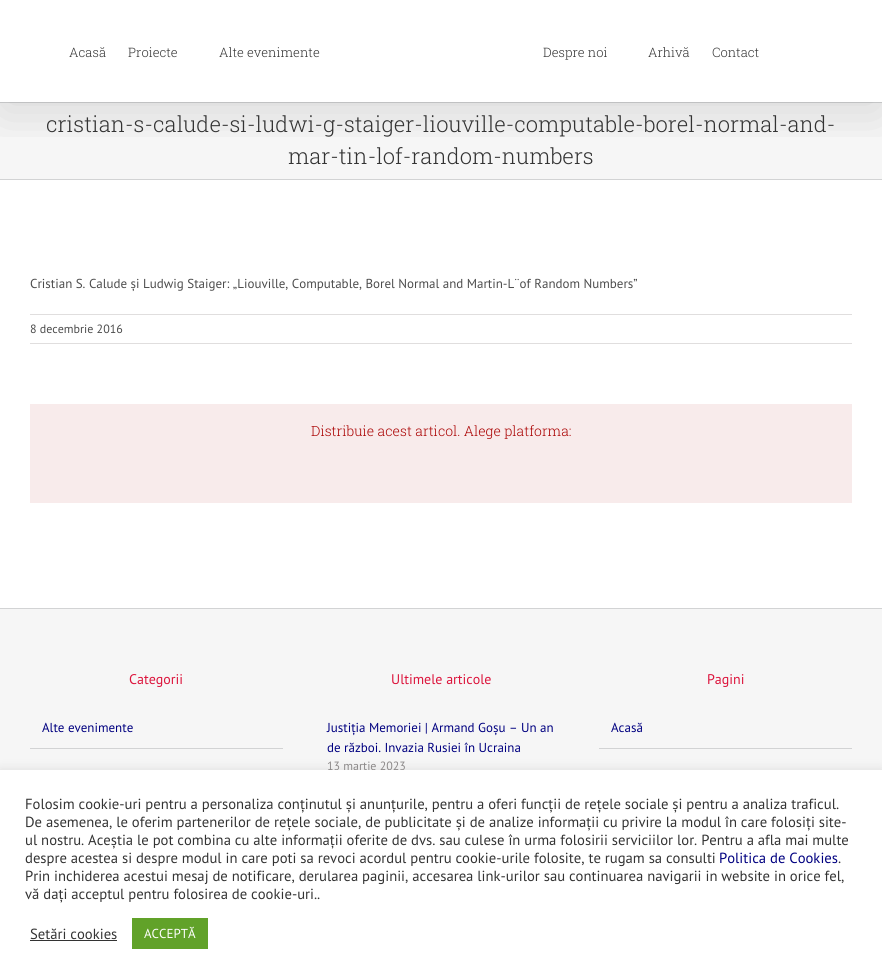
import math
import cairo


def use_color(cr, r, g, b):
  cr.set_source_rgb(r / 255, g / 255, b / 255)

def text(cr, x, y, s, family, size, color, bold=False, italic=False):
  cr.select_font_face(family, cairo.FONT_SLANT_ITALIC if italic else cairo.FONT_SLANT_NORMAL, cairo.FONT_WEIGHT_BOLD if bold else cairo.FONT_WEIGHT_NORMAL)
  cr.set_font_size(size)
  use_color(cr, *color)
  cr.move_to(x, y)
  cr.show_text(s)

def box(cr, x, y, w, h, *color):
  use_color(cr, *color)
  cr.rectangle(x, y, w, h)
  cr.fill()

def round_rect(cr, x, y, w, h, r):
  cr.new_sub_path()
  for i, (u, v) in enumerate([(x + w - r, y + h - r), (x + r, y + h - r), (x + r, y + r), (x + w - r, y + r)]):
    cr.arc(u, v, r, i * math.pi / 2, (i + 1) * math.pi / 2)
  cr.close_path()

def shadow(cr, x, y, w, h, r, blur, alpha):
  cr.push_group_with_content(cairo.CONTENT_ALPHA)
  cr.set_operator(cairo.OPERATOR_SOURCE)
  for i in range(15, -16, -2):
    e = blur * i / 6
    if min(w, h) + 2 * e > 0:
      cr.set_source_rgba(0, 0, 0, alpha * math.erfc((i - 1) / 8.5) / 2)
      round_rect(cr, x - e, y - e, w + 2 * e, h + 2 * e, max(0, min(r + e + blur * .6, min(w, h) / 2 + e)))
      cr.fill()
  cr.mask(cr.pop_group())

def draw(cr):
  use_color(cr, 255, 255, 255)
  cr.paint()
  box(cr, 0, 103, 882, 76, 246, 246, 246)
  box(cr, 0, 102, 882, 1, 210, 211, 212)
  box(cr, 0, 179, 882, 1, 210, 211, 212)
  cr.save()
  cr.rectangle(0, 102, 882, 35)
  cr.clip()
  use_color(cr, 0, 0, 0)
  shadow(cr, 2, 12, 878, 98, 0, 25, 0.14)
  cr.restore()
  box(cr, 30, 314, 822, 1, 224, 222, 222)
  box(cr, 30, 343, 822, 1, 224, 222, 222)
  box(cr, 30, 404, 822, 99, 248, 235, 235)
  box(cr, 0, 609, 882, 161, 246, 246, 246)
  box(cr, 0, 608, 882, 1, 210, 211, 212)
  box(cr, 30, 748, 253, 1, 210, 211, 212)
  box(cr, 599, 748, 253, 1, 210, 211, 212)
  use_color(cr, 172, 171, 171)
  shadow(cr, 0, 769, 882, 209, 0, 5, 0.3)
  text(cr, 69, 57, "Acasă", "Roboto Slab Light", 13, (51, 51, 51))
  text(cr, 128, 57, "Proiecte", "Roboto Slab Light", 13, (51, 51, 51))
  text(cr, 219, 57, "Alte evenimente", "Roboto Slab Light", 13, (51, 51, 51))
  text(cr, 543, 57, "Despre noi", "Roboto Slab Light", 13, (51, 51, 51))
  text(cr, 648, 57, "Arhivă", "Roboto Slab Light", 13, (51, 51, 51))
  text(cr, 712, 57, "Contact", "Roboto Slab Light", 13, (51, 51, 51))
  text(cr, 46, 132, "cristian-s-calude-si-ludwi-g-staiger-liouville-computable-borel-normal-and-", "Roboto Slab Light", 22, (51, 51, 51))
  text(cr, 288, 164, "mar-tin-lof-random-numbers", "Roboto Slab Light", 22, (51, 51, 51))
  text(cr, 30, 288, "Cristian S. Calude și Ludwig Staiger: „Liouville, Computable, Borel Normal and Martin-L¨of Random Numbers”", "PT Sans", 13, (76, 76, 76))
  text(cr, 30, 333, "8 decembrie 2016", "PT Sans", 12, (76, 76, 76))
  text(cr, 311, 436, "Distribuie acest articol. Alege platforma:", "Roboto Slab Light", 14, (170, 1, 1))
  text(cr, 129, 684, "Categorii", "PT Sans", 14, (220, 20, 60))
  text(cr, 42, 732, "Alte evenimente", "PT Sans", 13, (0, 0, 128))
  text(cr, 391, 684, "Ultimele articole", "PT Sans", 14, (220, 20, 60))
  text(cr, 327, 732, "Justiția Memoriei | Armand Goșu – Un an", "PT Sans", 13, (0, 0, 128))
  text(cr, 327, 752, "de război. Invazia Rusiei în Ucraina", "PT Sans", 13, (0, 0, 128))
  text(cr, 327, 770, "13 martie 2023", "PT Sans", 12, (140, 137, 137))
  text(cr, 707, 684, "Pagini", "PT Sans", 14, (220, 20, 60))
  text(cr, 611, 732, "Acasă", "PT Sans", 13, (0, 0, 128))
  box(cr, 0, 770, 882, 209, 255, 255, 255)
  text(cr, 25, 809, "Folosim cookie-uri pentru a personaliza conținutul și anunțurile, pentru a oferi funcții de rețele sociale și pentru a analiza traficul.", "PT Sans", 14.67, (51, 51, 51))
  text(cr, 25, 827, "De asemenea, le oferim partenerilor de rețele sociale, de publicitate și de analize informații cu privire la modul în care folosiți site-", "PT Sans", 14.67, (51, 51, 51))
  text(cr, 25, 845, "ul nostru. Aceștia le pot combina cu alte informații oferite de dvs. sau culese în urma folosirii serviciilor lor. Pentru a afla mai multe", "PT Sans", 14.67, (51, 51, 51))
  text(cr, 25, 863, "despre acestea si despre modul in care poti sa revoci acordul pentru cookie-urile folosite, te rugam sa consulti", "PT Sans", 14.67, (51, 51, 51))
  text(cr, 719, 863, "Politica de Cookies", "PT Sans", 14.67, (0, 0, 128))
  text(cr, 838, 863, ".", "PT Sans", 14.67, (51, 51, 51))
  text(cr, 25, 881, "Prin inchiderea acestui mesaj de notificare, derularea paginii, accesarea link-urilor sau continuarea navigarii in website in orice fel,", "PT Sans", 14.67, (51, 51, 51))
  text(cr, 25, 899, "vă dați acceptul pentru folosirea de cookie-uri..", "PT Sans", 14.67, (51, 51, 51))
  text(cr, 30, 939, "Setări cookies", "PT Sans", 14.67, (51, 51, 51))
  box(cr, 30, 940, 87, 1, 51, 51, 51)
  box(cr, 132, 918, 76, 31, 97, 162, 41)
  text(cr, 144, 938, "ACCEPTĂ", "PT Sans", 13, (255, 255, 255))


surface = cairo.ImageSurface(cairo.FORMAT_RGB24, 882, 979)
cr = cairo.Context(surface)
options = cairo.FontOptions()
options.set_hint_metrics(cairo.HINT_METRICS_OFF)
options.set_hint_style(cairo.HINT_STYLE_NONE)
cr.set_font_options(options)
cr.set_miter_limit(4)
draw(cr)
surface.write_to_png("out.png")
